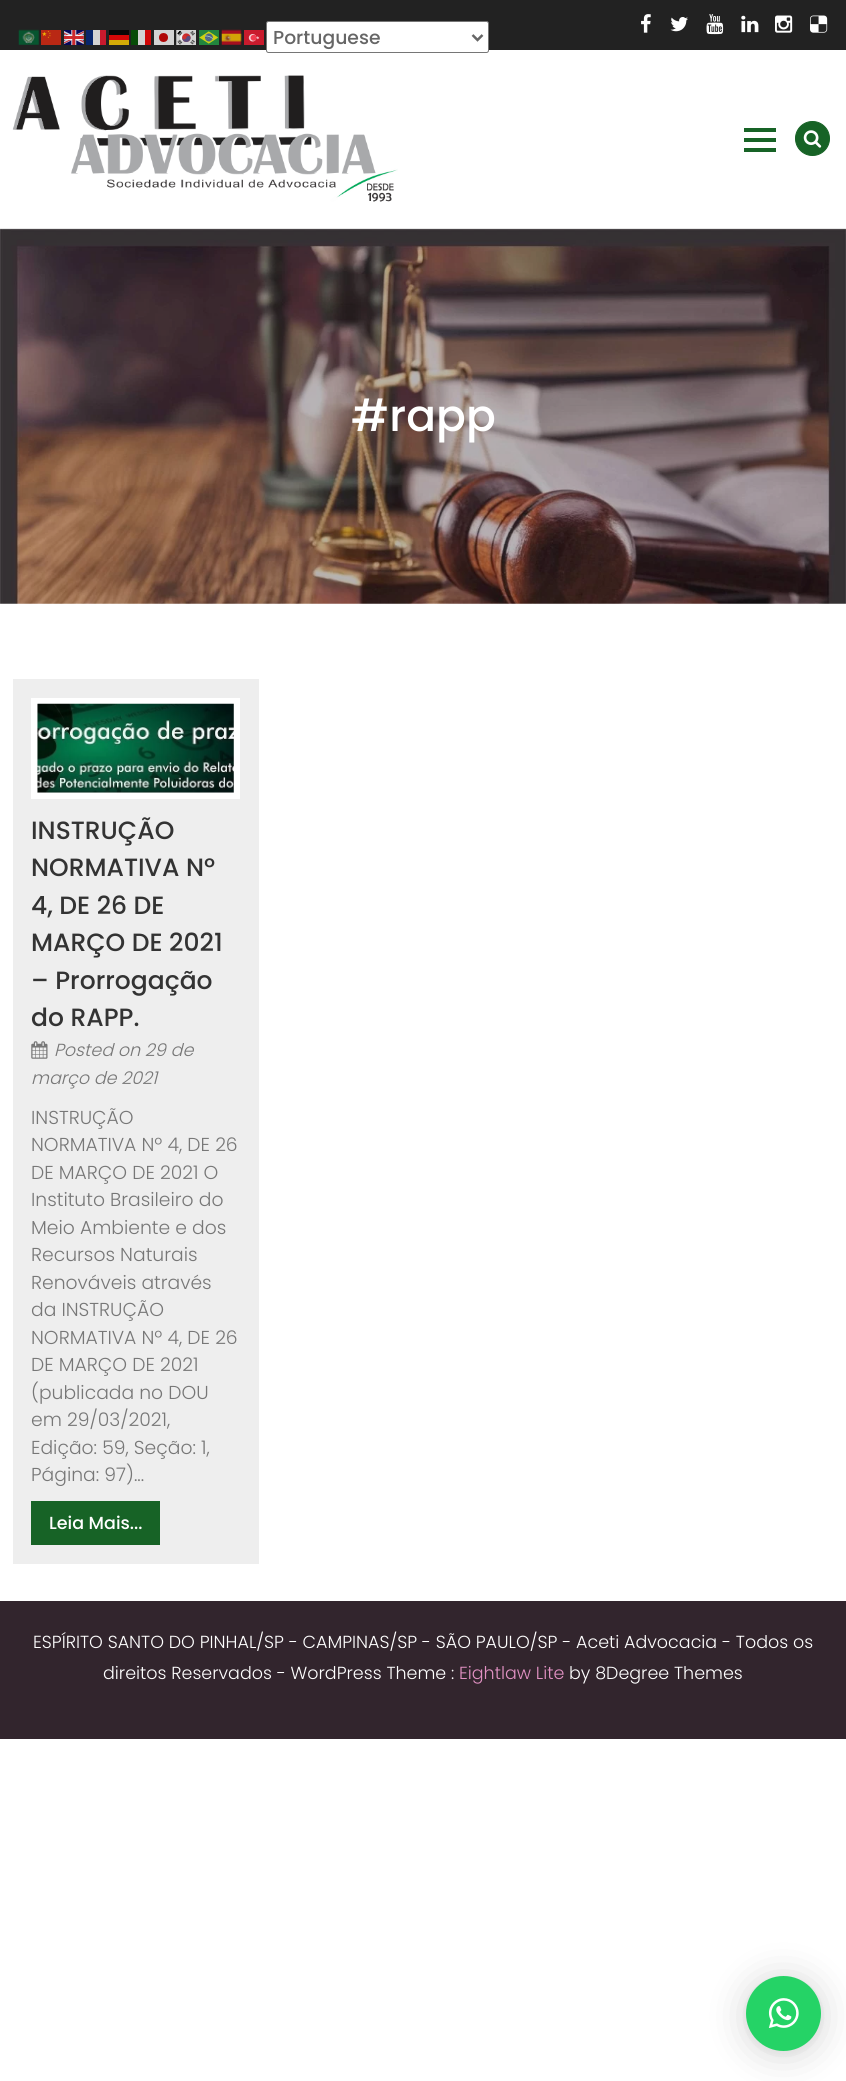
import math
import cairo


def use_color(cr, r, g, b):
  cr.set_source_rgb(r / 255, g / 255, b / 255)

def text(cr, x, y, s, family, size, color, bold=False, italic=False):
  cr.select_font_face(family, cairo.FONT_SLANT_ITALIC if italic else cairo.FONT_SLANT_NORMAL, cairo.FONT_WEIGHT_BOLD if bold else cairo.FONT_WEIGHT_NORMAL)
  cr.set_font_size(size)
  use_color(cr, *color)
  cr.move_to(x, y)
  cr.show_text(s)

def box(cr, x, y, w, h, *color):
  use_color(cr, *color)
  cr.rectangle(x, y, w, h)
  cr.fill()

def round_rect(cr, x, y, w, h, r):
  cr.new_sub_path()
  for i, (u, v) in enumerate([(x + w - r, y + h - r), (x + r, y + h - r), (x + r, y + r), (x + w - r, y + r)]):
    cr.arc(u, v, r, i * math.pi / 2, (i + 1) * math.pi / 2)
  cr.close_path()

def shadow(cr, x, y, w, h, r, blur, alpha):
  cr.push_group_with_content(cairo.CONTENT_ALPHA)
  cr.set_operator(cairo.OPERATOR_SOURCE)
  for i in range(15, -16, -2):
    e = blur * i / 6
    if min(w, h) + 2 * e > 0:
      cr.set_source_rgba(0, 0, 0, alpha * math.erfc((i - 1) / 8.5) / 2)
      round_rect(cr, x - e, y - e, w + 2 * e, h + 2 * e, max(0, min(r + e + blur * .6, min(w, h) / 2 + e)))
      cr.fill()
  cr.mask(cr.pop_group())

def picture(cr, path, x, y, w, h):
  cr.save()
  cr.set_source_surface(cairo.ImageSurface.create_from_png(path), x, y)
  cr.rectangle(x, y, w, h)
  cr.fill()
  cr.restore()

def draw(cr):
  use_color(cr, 255, 255, 255)
  cr.paint()
  box(cr, 0, 0, 846, 50, 34, 34, 34)
  picture(cr, "img_01.png", 18, 29, 21, 16)
  picture(cr, "img_02.png", 41, 30, 20, 15)
  picture(cr, "img_03.png", 64, 30, 20, 15)
  box(cr, 86, 30, 7, 15, 7, 37, 108)
  box(cr, 93, 30, 7, 15, 211, 211, 211)
  box(cr, 100, 30, 6, 15, 201, 26, 45)
  box(cr, 109, 30, 20, 5, 7, 7, 7)
  box(cr, 131, 30, 7, 15, 7, 76, 7)
  box(cr, 138, 30, 7, 15, 211, 211, 211)
  box(cr, 145, 30, 6, 15, 208, 7, 7)
  box(cr, 154, 30, 20, 15, 211, 211, 211)
  picture(cr, "img_04.png", 176, 30, 20, 15)
  picture(cr, "img_05.png", 199, 30, 20, 15)
  picture(cr, "img_06.png", 221, 29, 21, 16)
  picture(cr, "img_07.png", 244, 30, 20, 15)
  use_color(cr, 255, 255, 255)
  round_rect(cr, 266.5, 21.5, 222, 31, 2)
  cr.fill_preserve()
  use_color(cr, 118, 118, 118)
  cr.set_line_width(1)
  cr.stroke()
  cr.new_path()
  cr.move_to(472.5, 35)
  cr.line_to(477.5, 40)
  cr.line_to(482.5, 35)
  use_color(cr, 102, 102, 102)
  cr.set_line_width(2.5)
  cr.stroke()
  box(cr, 109, 35, 20, 5, 211, 7, 7)
  use_color(cr, 176, 7, 7)
  cr.arc(163.5, 37.5, 4.5, 0, 2 * math.pi)
  cr.fill()
  box(cr, 109, 40, 20, 5, 211, 170, 7)
  picture(cr, "img_08.png", 641, 14, 10, 19)
  picture(cr, "img_09.png", 670, 17, 18, 15)
  picture(cr, "img_10.png", 706, 14, 18, 21)
  picture(cr, "img_11.png", 741, 15, 18, 18)
  picture(cr, "img_12.png", 775, 15, 18, 18)
  picture(cr, "img_13.png", 810, 15, 18, 18)
  picture(cr, "img_14.png", 12, 75, 386, 127)
  box(cr, 744, 128, 32, 4, 23, 99, 38)
  box(cr, 744, 148, 32, 4, 23, 99, 38)
  box(cr, 744, 138, 32, 4, 23, 99, 38)
  cr.arc(812.5, 138.5, 17, 0, 2 * math.pi)
  cr.fill_preserve()
  cr.set_line_width(1)
  cr.stroke()
  picture(cr, "img_15.png", 803, 130, 19, 18)
  box(cr, 0, 228, 846, 1, 238, 238, 238)
  picture(cr, "img_16.png", 0, 228, 846, 376)
  box(cr, 13, 679, 246, 885, 238, 238, 238)
  cr.rectangle(34, 701, 203, 95)
  use_color(cr, 255, 255, 255)
  cr.set_line_width(6)
  cr.stroke()
  picture(cr, "img_17.png", 37, 703, 197, 90)
  picture(cr, "img_18.png", 31, 1041, 17, 18)
  box(cr, 31, 1501, 129, 44, 23, 99, 38)
  box(cr, 0, 1601, 846, 138, 50, 37, 45)
  use_color(cr, 0, 0, 0)
  shadow(cr, 746, 1979, 75, 75, 37.5, 20, 0.16)
  shadow(cr, 746, 1978, 75, 75, 37.5, 4, 0.06)
  use_color(cr, 37, 211, 102)
  cr.arc(783.5, 2013.5, 37.5, 0, 2 * math.pi)
  cr.fill()
  picture(cr, "img_19.png", 768, 1998, 31, 30)
  text(cr, 273, 44, "Portuguese", "Poppins Medium", 18.75, (102, 102, 102))
  text(cr, 351, 431, "#rapp", "Poppins Medium", 44, (255, 255, 255))
  text(cr, 31, 839, "INSTRUÇÃO", "Poppins Medium", 25, (51, 51, 51))
  text(cr, 31, 876, "NORMATIVA Nº", "Poppins Medium", 25, (51, 51, 51))
  text(cr, 31, 914, "4, DE 26 DE", "Poppins Medium", 25, (51, 51, 51))
  text(cr, 31, 951, "MARÇO DE 2021", "Poppins Medium", 25, (51, 51, 51))
  text(cr, 31, 989, "– Prorrogação", "Poppins Medium", 25, (51, 51, 51))
  text(cr, 31, 1026, "do RAPP.", "Poppins Medium", 25, (51, 51, 51))
  text(cr, 54, 1056, "Posted on 29 de", "Poppins Light", 17.5, (119, 119, 119), italic=True)
  text(cr, 31, 1084, "março de 2021", "Poppins Light", 17.5, (119, 119, 119), italic=True)
  text(cr, 31, 1124, "INSTRUÇÃO", "Poppins Light", 18.75, (119, 119, 119))
  text(cr, 31, 1151, "NORMATIVA Nº 4, DE 26", "Poppins Light", 18.75, (119, 119, 119))
  text(cr, 31, 1179, "DE MARÇO DE 2021 O", "Poppins Light", 18.75, (119, 119, 119))
  text(cr, 31, 1206, "Instituto Brasileiro do", "Poppins Light", 18.75, (119, 119, 119))
  text(cr, 31, 1234, "Meio Ambiente e dos", "Poppins Light", 18.75, (119, 119, 119))
  text(cr, 31, 1261, "Recursos Naturais", "Poppins Light", 18.75, (119, 119, 119))
  text(cr, 31, 1289, "Renováveis através", "Poppins Light", 18.75, (119, 119, 119))
  text(cr, 31, 1316, "da INSTRUÇÃO", "Poppins Light", 18.75, (119, 119, 119))
  text(cr, 31, 1344, "NORMATIVA Nº 4, DE 26", "Poppins Light", 18.75, (119, 119, 119))
  text(cr, 31, 1371, "DE MARÇO DE 2021", "Poppins Light", 18.75, (119, 119, 119))
  text(cr, 31, 1399, "(publicada no DOU", "Poppins Light", 18.75, (119, 119, 119))
  text(cr, 31, 1426, "em 29/03/2021,", "Poppins Light", 18.75, (119, 119, 119))
  text(cr, 31, 1454, "Edição: 59, Seção: 1,", "Poppins Light", 18.75, (119, 119, 119))
  text(cr, 31, 1481, "Página: 97)...", "Poppins Light", 18.75, (119, 119, 119))
  text(cr, 49, 1529, "Leia Mais...", "Poppins Medium", 17.5, (255, 255, 255))
  text(cr, 33, 1648, "ESPÍRITO SANTO DO PINHAL/SP - CAMPINAS/SP - SÃO PAULO/SP - Aceti Advocacia - Todos os", "Poppins Light", 17.5, (255, 255, 255))
  text(cr, 103, 1679, "direitos Reservados - WordPress Theme :", "Poppins Light", 17.5, (255, 255, 255))
  text(cr, 459, 1679, "Eightlaw Lite", "Poppins Light", 17.5, (226, 145, 195))
  text(cr, 569, 1679, "by 8Degree Themes", "Poppins Light", 17.5, (255, 255, 255))


surface = cairo.ImageSurface(cairo.FORMAT_RGB24, 846, 2081)
cr = cairo.Context(surface)
options = cairo.FontOptions()
options.set_hint_metrics(cairo.HINT_METRICS_OFF)
options.set_hint_style(cairo.HINT_STYLE_NONE)
cr.set_font_options(options)
cr.set_miter_limit(4)
draw(cr)
surface.write_to_png("out.png")
